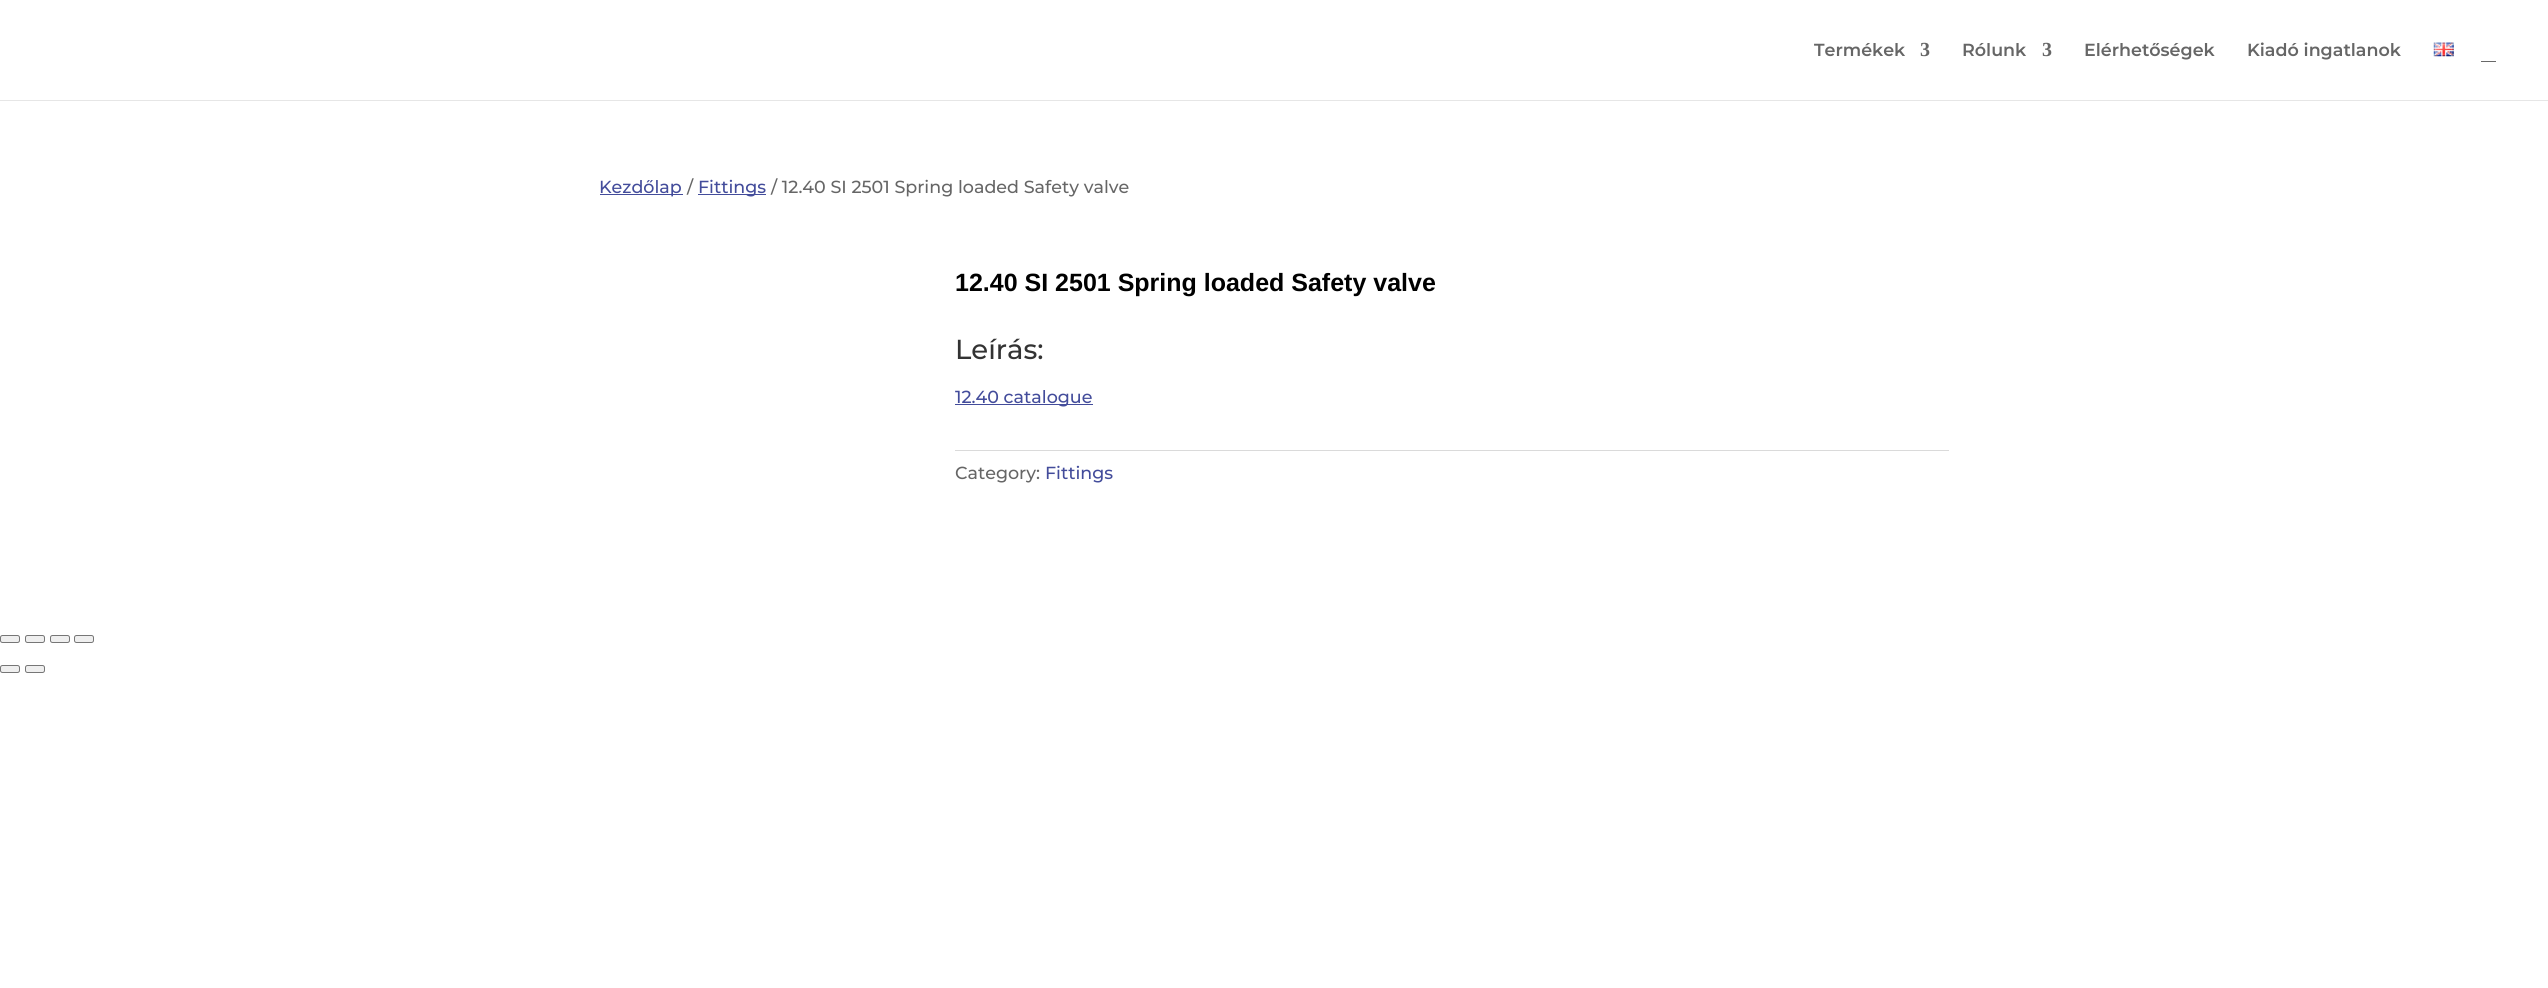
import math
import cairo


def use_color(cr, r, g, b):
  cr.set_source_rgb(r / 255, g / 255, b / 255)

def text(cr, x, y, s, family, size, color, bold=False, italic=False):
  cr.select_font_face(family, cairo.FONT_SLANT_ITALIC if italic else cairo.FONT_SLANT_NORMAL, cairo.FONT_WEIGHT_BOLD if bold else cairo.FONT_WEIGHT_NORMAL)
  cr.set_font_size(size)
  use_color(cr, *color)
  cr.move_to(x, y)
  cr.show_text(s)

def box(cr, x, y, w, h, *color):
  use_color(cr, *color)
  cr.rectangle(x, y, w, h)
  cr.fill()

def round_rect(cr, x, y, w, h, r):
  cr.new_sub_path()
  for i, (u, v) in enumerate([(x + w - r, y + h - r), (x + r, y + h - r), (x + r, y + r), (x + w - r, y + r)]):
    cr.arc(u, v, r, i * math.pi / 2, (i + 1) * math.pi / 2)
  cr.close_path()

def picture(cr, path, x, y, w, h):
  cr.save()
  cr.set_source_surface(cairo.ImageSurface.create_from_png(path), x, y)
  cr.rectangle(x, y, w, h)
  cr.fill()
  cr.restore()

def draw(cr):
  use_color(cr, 255, 255, 255)
  cr.paint()
  use_color(cr, 230, 230, 230)
  cr.new_path()
  cr.move_to(0, 100)
  cr.line_to(0, 101)
  cr.line_to(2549, 101)
  cr.line_to(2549, 1)
  cr.line_to(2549, 100)
  cr.close_path()
  cr.fill()
  picture(cr, "img_01.png", 2433, 42, 21, 15)
  box(cr, 2481, 61, 15, 1, 105, 105, 105)
  box(cr, 600, 194, 83, 1, 67, 76, 155)
  box(cr, 698, 194, 68, 1, 67, 76, 155)
  box(cr, 955, 404, 138, 1, 67, 76, 155)
  box(cr, 955, 450, 994, 1, 218, 218, 218)
  use_color(cr, 239, 239, 239)
  round_rect(cr, 0.5, 635.5, 19, 7, 2)
  cr.fill_preserve()
  use_color(cr, 118, 118, 118)
  cr.set_line_width(1)
  cr.stroke()
  use_color(cr, 239, 239, 239)
  round_rect(cr, 25.5, 635.5, 19, 7, 2)
  cr.fill_preserve()
  use_color(cr, 118, 118, 118)
  cr.stroke()
  use_color(cr, 239, 239, 239)
  round_rect(cr, 50.5, 635.5, 19, 7, 2)
  cr.fill_preserve()
  use_color(cr, 118, 118, 118)
  cr.stroke()
  use_color(cr, 239, 239, 239)
  round_rect(cr, 74.5, 635.5, 19, 7, 2)
  cr.fill_preserve()
  use_color(cr, 118, 118, 118)
  cr.stroke()
  use_color(cr, 239, 239, 239)
  round_rect(cr, 0.5, 665.5, 19, 7, 2)
  cr.fill_preserve()
  use_color(cr, 118, 118, 118)
  cr.stroke()
  use_color(cr, 239, 239, 239)
  round_rect(cr, 25.5, 665.5, 19, 7, 2)
  cr.fill_preserve()
  use_color(cr, 118, 118, 118)
  cr.stroke()
  text(cr, 1814, 56, "Termékek", "Montserrat SemiBold", 17.5, (102, 102, 102))
  text(cr, 1920, 56, "3", "Liberation Serif", 20, (102, 102, 102), bold=True)
  text(cr, 1962, 56, "Rólunk", "Montserrat SemiBold", 17.5, (102, 102, 102))
  text(cr, 2042, 56, "3", "Liberation Serif", 20, (102, 102, 102), bold=True)
  text(cr, 2084, 56, "Elérhetőségek", "Montserrat SemiBold", 17.5, (102, 102, 102))
  text(cr, 2247, 56, "Kiadó ingatlanok", "Montserrat SemiBold", 17.5, (102, 102, 102))
  text(cr, 599, 193, "Kezdőlap", "Montserrat Medium", 17.5, (67, 76, 155))
  text(cr, 687, 193, "/", "Montserrat Medium", 17.5, (102, 102, 102))
  text(cr, 698, 193, "Fittings", "Montserrat Medium", 17.5, (67, 76, 155))
  text(cr, 771, 193, "/ 12.40 SI 2501 Spring loaded Safety valve", "Montserrat Medium", 17.5, (102, 102, 102))
  text(cr, 955, 291, "12.40 SI 2501 Spring loaded Safety valve", "Liberation Sans", 25, (0, 0, 0), bold=True)
  text(cr, 955, 359, "Leírás:", "Montserrat Medium", 27.5, (51, 51, 51))
  text(cr, 955, 403, "12.40 catalogue", "Montserrat Medium", 17.5, (67, 76, 155))
  text(cr, 955, 479, "Category:", "Montserrat Medium", 17.5, (102, 102, 102))
  text(cr, 1045, 479, "Fittings", "Montserrat Medium", 17.5, (67, 76, 155))


surface = cairo.ImageSurface(cairo.FORMAT_RGB24, 2548, 988)
cr = cairo.Context(surface)
options = cairo.FontOptions()
options.set_hint_metrics(cairo.HINT_METRICS_OFF)
options.set_hint_style(cairo.HINT_STYLE_NONE)
cr.set_font_options(options)
cr.set_miter_limit(4)
draw(cr)
surface.write_to_png("out.png")
